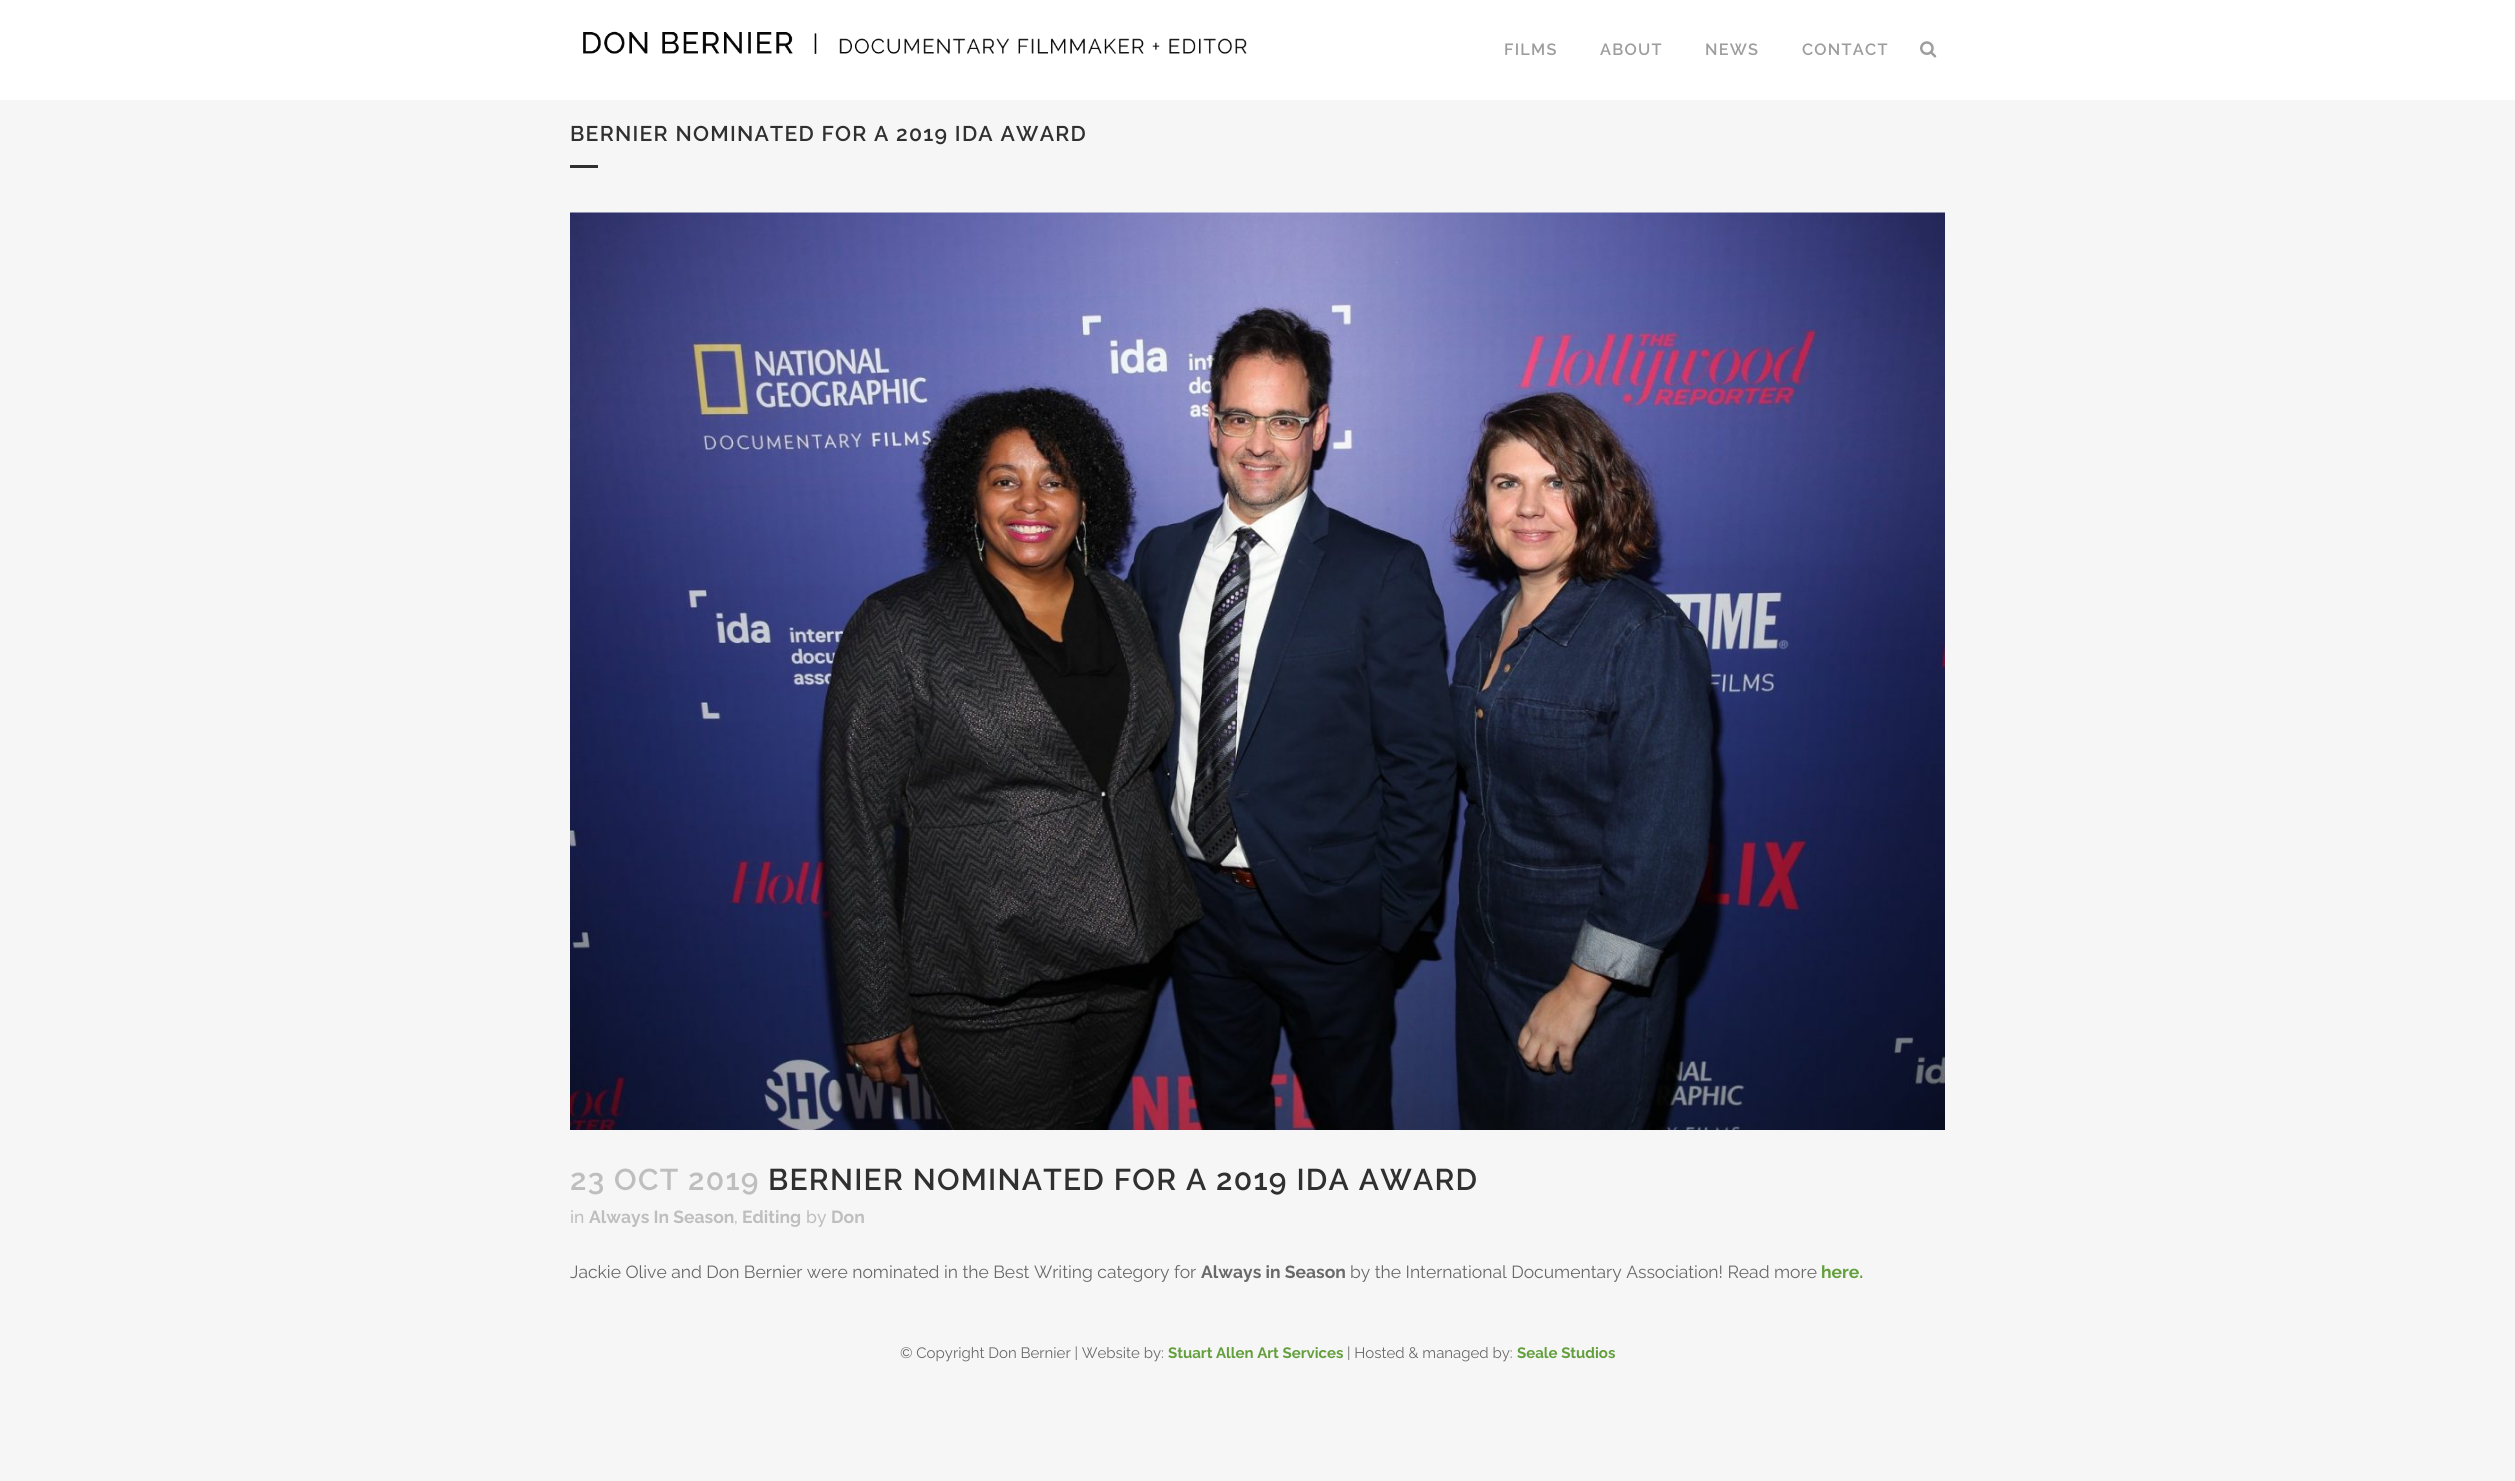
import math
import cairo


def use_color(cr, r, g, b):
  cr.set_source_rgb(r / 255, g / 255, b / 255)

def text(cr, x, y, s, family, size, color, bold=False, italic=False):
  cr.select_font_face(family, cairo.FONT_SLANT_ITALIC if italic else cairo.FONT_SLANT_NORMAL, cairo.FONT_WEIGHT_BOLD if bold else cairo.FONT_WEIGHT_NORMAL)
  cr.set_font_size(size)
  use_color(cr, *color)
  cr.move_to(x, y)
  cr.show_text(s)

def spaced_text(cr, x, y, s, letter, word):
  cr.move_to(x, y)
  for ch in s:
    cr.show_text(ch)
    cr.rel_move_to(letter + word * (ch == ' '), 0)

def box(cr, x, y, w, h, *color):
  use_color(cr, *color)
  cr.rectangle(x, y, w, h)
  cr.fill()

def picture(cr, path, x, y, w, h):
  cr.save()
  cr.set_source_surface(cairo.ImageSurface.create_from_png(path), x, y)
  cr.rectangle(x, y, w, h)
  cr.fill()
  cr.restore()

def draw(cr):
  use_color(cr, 246, 246, 246)
  cr.paint()
  box(cr, 0, 0, 2515, 100, 255, 255, 255)
  picture(cr, "img_01.png", 583, 31, 664, 23)
  picture(cr, "img_02.png", 1920, 41, 17, 17)
  box(cr, 570, 165, 28, 3, 48, 48, 48)
  picture(cr, "img_03.png", 570, 212, 1375, 918)
  cr.select_font_face("Raleway SemiBold")
  cr.set_font_size(16.25)
  use_color(cr, 157, 157, 157)
  spaced_text(cr, 1504, 55, "FILMS", 1.25, 0)
  spaced_text(cr, 1600, 55, "ABOUT", 1.25, 0)
  spaced_text(cr, 1705, 55, "NEWS", 1.25, 0)
  spaced_text(cr, 1802, 55, "CONTACT", 1.25, 0)
  cr.set_font_size(21.25)
  use_color(cr, 48, 48, 48)
  spaced_text(cr, 570, 141, "BERNIER NOMINATED FOR A 2019 IDA AWARD", 1.25, 0)
  cr.set_font_size(30)
  use_color(cr, 190, 190, 190)
  spaced_text(cr, 570, 1190, "23 OCT 2019", 1.25, 0)
  use_color(cr, 48, 48, 48)
  spaced_text(cr, 768, 1190, "BERNIER NOMINATED FOR A 2019 IDA AWARD", 1.25, 0)
  text(cr, 570, 1223, "in", "Raleway Medium", 17.5, (190, 190, 190))
  text(cr, 589, 1223, "Always In Season", "Raleway", 17.5, (190, 190, 190), bold=True)
  text(cr, 734, 1223, ",", "Raleway Medium", 17.5, (190, 190, 190))
  text(cr, 742, 1223, "Editing", "Raleway", 17.5, (190, 190, 190), bold=True)
  text(cr, 806, 1223, "by", "Raleway Medium", 17.5, (190, 190, 190))
  text(cr, 831, 1223, "Don", "Raleway", 17.5, (190, 190, 190), bold=True)
  text(cr, 570, 1278, "Jackie Olive and Don Bernier were nominated in the Best Writing category for", "Raleway", 17.5, (105, 105, 105))
  text(cr, 1201, 1278, "Always in Season", "Raleway", 17.5, (105, 105, 105), bold=True)
  text(cr, 1350, 1278, "by the International Documentary Association! Read more", "Raleway", 17.5, (105, 105, 105))
  text(cr, 1821, 1278, "here.", "Raleway", 17.5, (99, 159, 61), bold=True)
  text(cr, 900, 1358, "© Copyright Don Bernier | Website by:", "Raleway", 15, (105, 105, 105))
  text(cr, 1168, 1358, "Stuart Allen Art Services", "Raleway", 15, (99, 159, 61), bold=True)
  text(cr, 1347, 1358, "| Hosted & managed by:", "Raleway", 15, (105, 105, 105))
  text(cr, 1517, 1358, "Seale Studios", "Raleway", 15, (99, 159, 61), bold=True)


surface = cairo.ImageSurface(cairo.FORMAT_RGB24, 2515, 1481)
cr = cairo.Context(surface)
options = cairo.FontOptions()
options.set_hint_metrics(cairo.HINT_METRICS_OFF)
options.set_hint_style(cairo.HINT_STYLE_NONE)
cr.set_font_options(options)
cr.set_miter_limit(4)
draw(cr)
surface.write_to_png("out.png")
